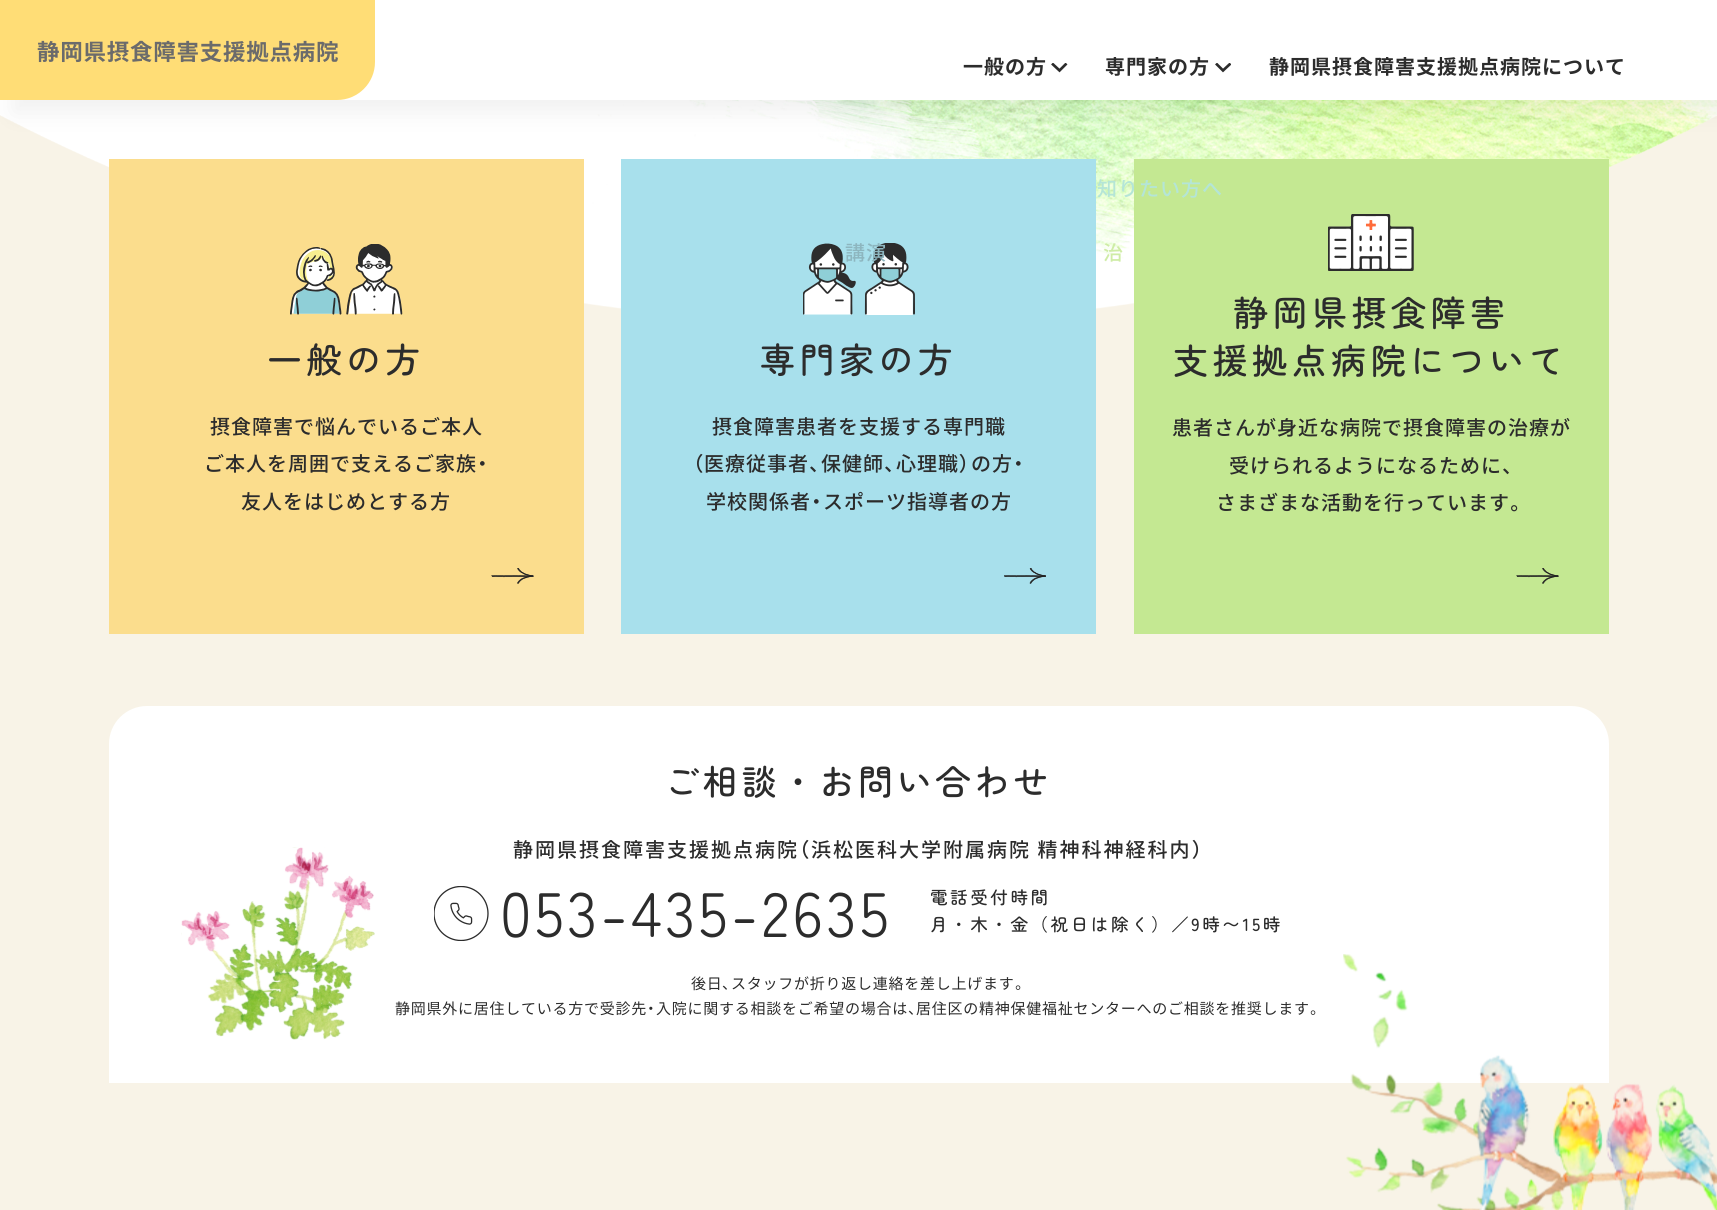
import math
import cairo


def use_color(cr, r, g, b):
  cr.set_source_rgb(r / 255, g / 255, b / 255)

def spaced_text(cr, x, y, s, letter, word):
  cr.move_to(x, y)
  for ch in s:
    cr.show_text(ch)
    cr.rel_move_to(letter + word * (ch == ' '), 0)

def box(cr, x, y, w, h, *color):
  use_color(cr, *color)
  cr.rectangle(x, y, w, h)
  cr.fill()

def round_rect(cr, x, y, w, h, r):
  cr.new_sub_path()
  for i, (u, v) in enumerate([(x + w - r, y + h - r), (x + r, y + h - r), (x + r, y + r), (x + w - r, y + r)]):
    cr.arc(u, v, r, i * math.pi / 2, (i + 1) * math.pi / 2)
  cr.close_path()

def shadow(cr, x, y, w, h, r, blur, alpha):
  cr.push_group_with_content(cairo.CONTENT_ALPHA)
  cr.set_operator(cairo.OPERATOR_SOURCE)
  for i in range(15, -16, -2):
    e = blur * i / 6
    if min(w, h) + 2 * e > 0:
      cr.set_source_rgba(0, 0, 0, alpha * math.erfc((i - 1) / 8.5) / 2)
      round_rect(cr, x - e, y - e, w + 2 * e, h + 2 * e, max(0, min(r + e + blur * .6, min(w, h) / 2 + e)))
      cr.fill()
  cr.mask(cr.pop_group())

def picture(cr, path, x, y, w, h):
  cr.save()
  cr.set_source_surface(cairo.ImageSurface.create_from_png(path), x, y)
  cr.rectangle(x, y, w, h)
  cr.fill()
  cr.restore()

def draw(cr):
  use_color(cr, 248, 243, 231)
  cr.paint()
  picture(cr, "img_01.png", 0, 100, 1717, 209)
  use_color(cr, 0, 0, 0)
  shadow(cr, 13, 13, 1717, 100, 0, 12.5, 0.06)
  box(cr, 337, 0, 1380, 100, 255, 255, 255)
  use_color(cr, 255, 221, 118)
  cr.new_path()
  cr.move_to(0, 0)
  cr.line_to(375, 0)
  cr.line_to(375, 62)
  cr.curve_to(375, 83, 358, 100, 337, 100)
  cr.line_to(0, 100)
  cr.close_path()
  cr.fill()
  cr.save()
  cr.rectangle(1051, 63, 17, 10)
  cr.clip()
  cr.new_path()
  cr.move_to(1066.5, 63.5)
  cr.line_to(1059.5, 70.5)
  cr.line_to(1052, 63.5)
  use_color(cr, 44, 44, 44)
  cr.set_line_width(2.7)
  cr.stroke()
  cr.restore()
  cr.save()
  cr.rectangle(1215, 63, 16, 10)
  cr.clip()
  cr.new_path()
  cr.move_to(1230.5, 63.5)
  cr.line_to(1223, 70.5)
  cr.line_to(1216, 63.5)
  use_color(cr, 44, 44, 44)
  cr.set_line_width(2.7)
  cr.stroke()
  cr.restore()
  box(cr, 109, 159, 475, 475, 251, 221, 141)
  picture(cr, "img_02.png", 491, 568, 43, 16)
  picture(cr, "img_03.png", 290, 244, 113, 71)
  box(cr, 621, 159, 475, 475, 168, 224, 236)
  picture(cr, "img_04.png", 1004, 568, 42, 16)
  picture(cr, "img_05.png", 803, 243, 112, 72)
  box(cr, 1134, 159, 475, 475, 196, 232, 146)
  picture(cr, "img_06.png", 1516, 568, 43, 16)
  picture(cr, "img_07.png", 1328, 214, 86, 57)
  use_color(cr, 255, 255, 255)
  cr.new_path()
  cr.move_to(147, 706)
  cr.line_to(1571, 706)
  cr.curve_to(1592, 706, 1609, 723, 1609, 744)
  cr.line_to(1609, 1083)
  cr.line_to(109, 1083)
  cr.line_to(109, 744)
  cr.curve_to(109, 723, 126, 706, 147, 706)
  cr.close_path()
  cr.fill()
  picture(cr, "img_08.png", 181, 847, 194, 193)
  picture(cr, "img_09.png", 434, 886, 55, 55)
  picture(cr, "img_10.png", 1343, 954, 374, 256)
  cr.select_font_face("Noto Sans JP", cairo.FONT_SLANT_NORMAL, cairo.FONT_WEIGHT_BOLD)
  cr.set_font_size(22.5)
  use_color(cr, 107, 107, 107)
  spaced_text(cr, 37, 60, "静岡県摂食障害支援拠点病院", 0.75, 0)
  cr.set_font_size(20)
  use_color(cr, 44, 44, 44)
  spaced_text(cr, 963, 74, "一般の方", 1, 0)
  cr.select_font_face("Noto Sans JP Medium")
  use_color(cr, 180, 229, 215)
  spaced_text(cr, 1097, 196, "知りたい方へ", 1, 0)
  use_color(cr, 141, 182, 191)
  spaced_text(cr, 845, 260, "講演", 1, 0)
  cr.select_font_face("Noto Sans JP", cairo.FONT_SLANT_NORMAL, cairo.FONT_WEIGHT_BOLD)
  use_color(cr, 44, 44, 44)
  spaced_text(cr, 1105, 74, "専門家の方", 1, 0)
  cr.select_font_face("Noto Sans JP Medium")
  use_color(cr, 207, 236, 166)
  spaced_text(cr, 1103, 260, "治", 1, 0)
  cr.select_font_face("Noto Sans JP", cairo.FONT_SLANT_NORMAL, cairo.FONT_WEIGHT_BOLD)
  use_color(cr, 44, 44, 44)
  spaced_text(cr, 1269, 74, "静岡県摂食障害支援拠点病院について", 1, 0)
  cr.select_font_face("Zen Maru Gothic Medium")
  cr.set_font_size(35)
  spaced_text(cr, 267, 373, "一般の方", 4.5, 0)
  cr.select_font_face("Noto Sans JP Medium")
  cr.set_font_size(20)
  spaced_text(cr, 210, 434, "摂食障害で悩んでいるご本人", 1, 0)
  spaced_text(cr, 204, 471, "ご本人を周囲で支えるご家族", 1, 0)
  cr.select_font_face("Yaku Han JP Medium")
  spaced_text(cr, 477, 471, "・", 1, 0)
  cr.select_font_face("Noto Sans JP Medium")
  spaced_text(cr, 241, 509, "友人をはじめとする方", 1, 0)
  cr.select_font_face("Zen Maru Gothic Medium")
  cr.set_font_size(35)
  spaced_text(cr, 760, 373, "専門家の方", 4.5, 0)
  cr.select_font_face("Noto Sans JP Medium")
  cr.set_font_size(20)
  spaced_text(cr, 712, 434, "摂食障害患者を支援する専門職", 1, 0)
  cr.select_font_face("Yaku Han JP Medium")
  spaced_text(cr, 693, 471, "（", 1, 0)
  cr.select_font_face("Noto Sans JP Medium")
  spaced_text(cr, 704, 471, "医療従事者", 1, 0)
  spaced_text(cr, 821, 471, "保健師", 1, 0)
  spaced_text(cr, 896, 471, "心理職", 1, 0)
  cr.select_font_face("Yaku Han JP Medium")
  spaced_text(cr, 959, 471, "）", 1, 0)
  cr.select_font_face("Noto Sans JP Medium")
  spaced_text(cr, 971, 471, "の方", 1, 0)
  cr.select_font_face("Yaku Han JP Medium")
  spaced_text(cr, 1013, 471, "・", 1, 0)
  spaced_text(cr, 809, 471, "、", 1, 0)
  spaced_text(cr, 884, 471, "、", 1, 0)
  cr.select_font_face("Noto Sans JP Medium")
  spaced_text(cr, 706, 509, "学校関係者", 1, 0)
  cr.select_font_face("Yaku Han JP Medium")
  spaced_text(cr, 811, 509, "・", 1, 0)
  cr.select_font_face("Noto Sans JP Medium")
  spaced_text(cr, 823, 509, "スポーツ指導者の方", 1, 0)
  cr.select_font_face("Zen Maru Gothic Medium")
  cr.set_font_size(35)
  spaced_text(cr, 1233, 326, "静岡県摂食障害", 4.5, 0)
  spaced_text(cr, 1173, 374, "支援拠点病院について", 4.5, 0)
  cr.select_font_face("Noto Sans JP Medium")
  cr.set_font_size(20)
  spaced_text(cr, 1172, 435, "患者さんが身近な病院で摂食障害の治療が", 1, 0)
  spaced_text(cr, 1229, 473, "受けられるようになるために", 1, 0)
  cr.select_font_face("Yaku Han JP Medium")
  spaced_text(cr, 1502, 473, "、", 1, 0)
  cr.select_font_face("Noto Sans JP Medium")
  spaced_text(cr, 1216, 510, "さまざまな活動を行っています", 1, 0)
  cr.select_font_face("Yaku Han JP Medium")
  spaced_text(cr, 1510, 510, "。", 1, 0)
  cr.select_font_face("Zen Maru Gothic Medium")
  cr.set_font_size(35)
  spaced_text(cr, 664, 795, "ご相談・お問い合わせ", 3.8, 0)
  cr.select_font_face("Noto Sans JP Medium")
  cr.set_font_size(20)
  spaced_text(cr, 513, 857, "静岡県摂食障害支援拠点病院", 2, 0)
  cr.select_font_face("Yaku Han JP Medium")
  spaced_text(cr, 799, 857, "（", 2, 0)
  cr.select_font_face("Noto Sans JP Medium")
  spaced_text(cr, 811, 857, "浜松医科大学附属病院 精神科神経科内", 2, 0)
  cr.select_font_face("Yaku Han JP Medium")
  spaced_text(cr, 1192, 857, "）", 2, 0)
  cr.select_font_face("Zen Maru Gothic")
  cr.set_font_size(62.5)
  spaced_text(cr, 500, 937, "053-435-2635", 3.1, 0)
  cr.select_font_face("Zen Maru Gothic Medium")
  cr.set_font_size(17.5)
  spaced_text(cr, 930, 904, "電話受付時間", 2.6, 0)
  spaced_text(cr, 930, 931, "月・木・金（祝日は除く）／9時〜15時", 2.6, 0)
  cr.select_font_face("Noto Sans JP")
  cr.set_font_size(15)
  spaced_text(cr, 691, 989, "後日", 0.75, 0)
  cr.select_font_face("Yaku Han JP")
  spaced_text(cr, 722, 989, "、", 0.75, 0)
  cr.select_font_face("Noto Sans JP")
  spaced_text(cr, 731, 989, "スタッフが折り返し連絡を差し上げます", 0.75, 0)
  cr.select_font_face("Yaku Han JP")
  spaced_text(cr, 1015, 989, "。", 0.75, 0)
  cr.select_font_face("Noto Sans JP")
  spaced_text(cr, 395, 1014, "静岡県外に居住している方で受診先", 0.75, 0)
  cr.select_font_face("Yaku Han JP")
  spaced_text(cr, 647, 1014, "・", 0.75, 0)
  cr.select_font_face("Noto Sans JP")
  spaced_text(cr, 656, 1014, "入院に関する相談をご希望の場合は", 0.75, 0)
  spaced_text(cr, 916, 1014, "居住区の精神保健福祉センターへのご相談を推奨します", 0.75, 0)
  cr.select_font_face("Yaku Han JP")
  spaced_text(cr, 908, 1014, "、", 0.75, 0)
  spaced_text(cr, 1310, 1014, "。", 0.75, 0)


surface = cairo.ImageSurface(cairo.FORMAT_RGB24, 1717, 1210)
cr = cairo.Context(surface)
options = cairo.FontOptions()
options.set_hint_metrics(cairo.HINT_METRICS_OFF)
options.set_hint_style(cairo.HINT_STYLE_NONE)
cr.set_font_options(options)
cr.set_miter_limit(4)
draw(cr)
surface.write_to_png("out.png")
